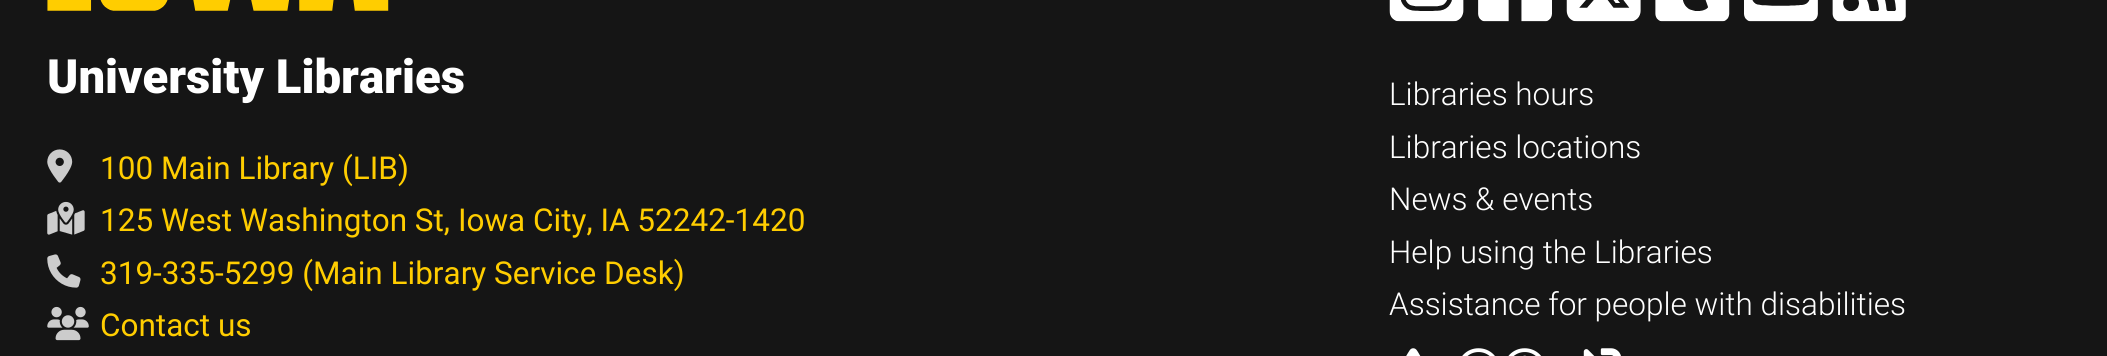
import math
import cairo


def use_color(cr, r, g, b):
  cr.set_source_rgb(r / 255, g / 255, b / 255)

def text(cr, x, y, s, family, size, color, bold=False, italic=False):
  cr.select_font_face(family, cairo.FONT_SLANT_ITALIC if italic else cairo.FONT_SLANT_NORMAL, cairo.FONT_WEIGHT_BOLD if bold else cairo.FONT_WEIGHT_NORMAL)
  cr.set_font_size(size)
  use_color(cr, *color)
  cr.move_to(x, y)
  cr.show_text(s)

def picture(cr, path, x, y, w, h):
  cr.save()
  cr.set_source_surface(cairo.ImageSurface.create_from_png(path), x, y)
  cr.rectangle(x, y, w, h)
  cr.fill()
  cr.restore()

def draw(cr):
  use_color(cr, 21, 21, 21)
  cr.paint()
  picture(cr, "img_01.png", 47, 0, 342, 11)
  picture(cr, "img_02.png", 47, 149, 26, 34)
  picture(cr, "img_03.png", 47, 201, 38, 34)
  picture(cr, "img_04.png", 47, 254, 34, 34)
  picture(cr, "img_05.png", 47, 306, 42, 35)
  picture(cr, "img_06.png", 1389, 0, 517, 22)
  picture(cr, "img_07.png", 1406, 348, 215, 8)
  text(cr, 47, 93, "University Libraries", "Roboto Black", 47.25, (255, 255, 255))
  text(cr, 100, 179, "100 Main Library (LIB)", "Roboto", 31.5, (255, 205, 0))
  text(cr, 100, 231, "125 West Washington St, Iowa City, IA 52242-1420", "Roboto", 31.5, (255, 205, 0))
  text(cr, 100, 284, "319-335-5299 (Main Library Service Desk)", "Roboto", 31.5, (255, 205, 0))
  text(cr, 100, 336, "Contact us", "Roboto", 31.5, (255, 205, 0))
  text(cr, 1389, 105, "Libraries hours", "Roboto Light", 31.5, (255, 255, 255))
  text(cr, 1389, 158, "Libraries locations", "Roboto Light", 31.5, (255, 255, 255))
  text(cr, 1389, 210, "News & events", "Roboto Light", 31.5, (255, 255, 255))
  text(cr, 1389, 263, "Help using the Libraries", "Roboto Light", 31.5, (255, 255, 255))
  text(cr, 1389, 315, "Assistance for people with disabilities", "Roboto Light", 31.5, (255, 255, 255))


surface = cairo.ImageSurface(cairo.FORMAT_RGB24, 2107, 356)
cr = cairo.Context(surface)
options = cairo.FontOptions()
options.set_hint_metrics(cairo.HINT_METRICS_OFF)
options.set_hint_style(cairo.HINT_STYLE_NONE)
cr.set_font_options(options)
cr.set_miter_limit(4)
draw(cr)
surface.write_to_png("out.png")
